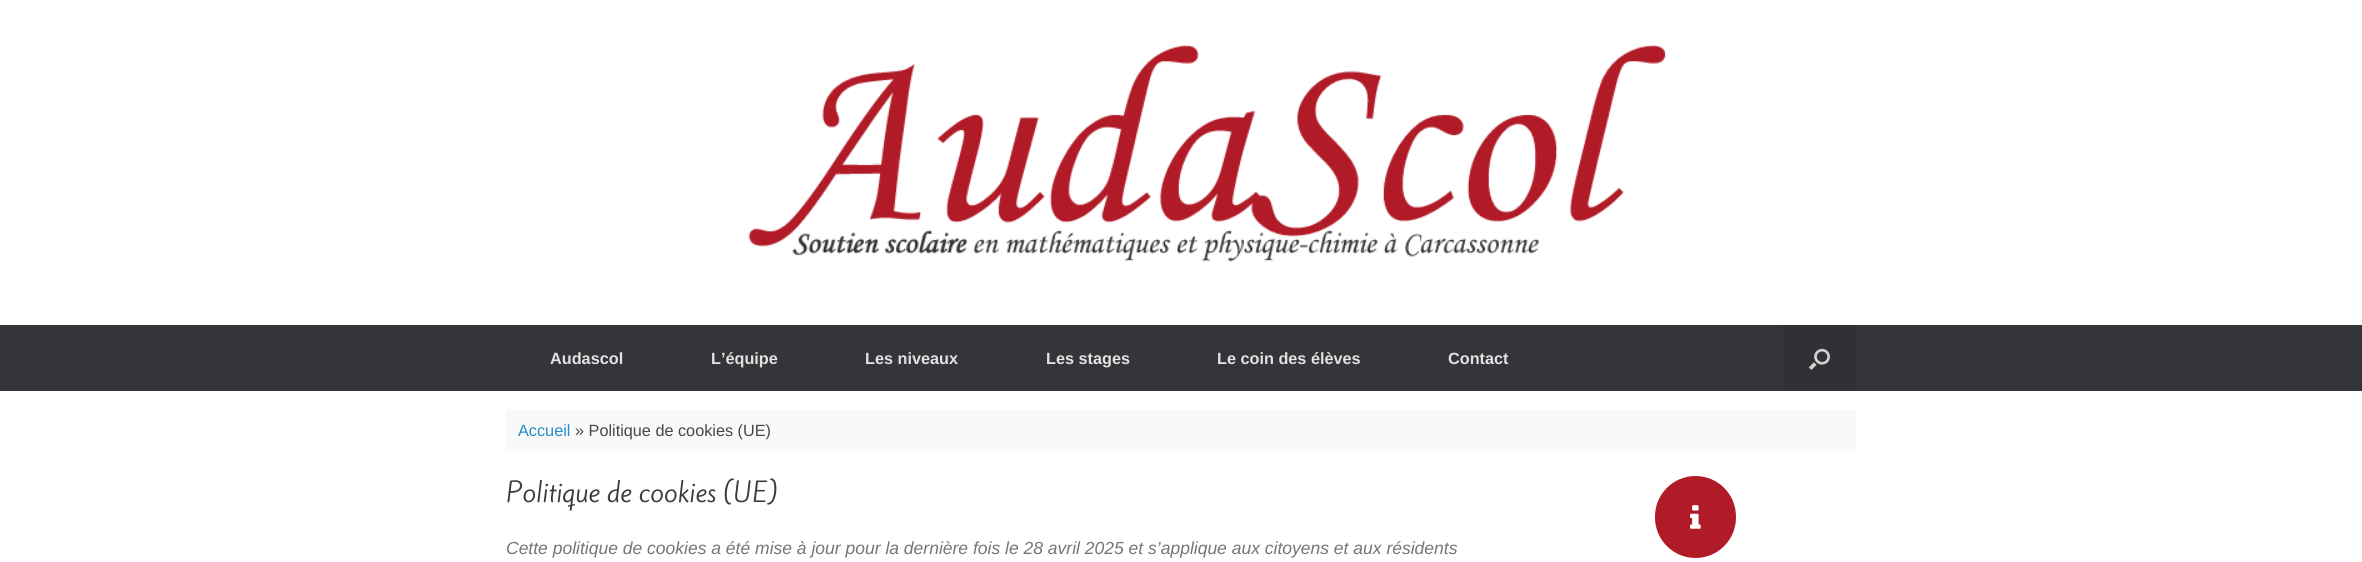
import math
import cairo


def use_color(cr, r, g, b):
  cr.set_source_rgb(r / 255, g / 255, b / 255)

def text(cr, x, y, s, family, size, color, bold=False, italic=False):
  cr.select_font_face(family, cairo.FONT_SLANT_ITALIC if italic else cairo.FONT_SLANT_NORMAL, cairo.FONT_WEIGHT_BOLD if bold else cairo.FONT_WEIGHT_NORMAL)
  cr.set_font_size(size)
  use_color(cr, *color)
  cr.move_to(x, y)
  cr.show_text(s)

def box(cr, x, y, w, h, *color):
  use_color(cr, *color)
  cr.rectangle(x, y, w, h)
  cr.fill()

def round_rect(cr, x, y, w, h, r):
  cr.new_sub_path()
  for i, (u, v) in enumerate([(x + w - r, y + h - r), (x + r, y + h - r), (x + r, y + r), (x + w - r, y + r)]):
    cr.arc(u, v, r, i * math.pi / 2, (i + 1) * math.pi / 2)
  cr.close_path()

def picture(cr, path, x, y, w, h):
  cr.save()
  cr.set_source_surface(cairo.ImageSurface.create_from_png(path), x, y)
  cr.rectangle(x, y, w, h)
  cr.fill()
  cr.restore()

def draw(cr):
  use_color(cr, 255, 255, 255)
  cr.paint()
  picture(cr, "img_01.png", 748, 45, 918, 217)
  box(cr, 0, 325, 2362, 66, 52, 53, 56)
  box(cr, 1783, 325, 73, 66, 48, 49, 52)
  picture(cr, "img_02.png", 1808, 348, 22, 22)
  box(cr, 506, 410, 1350, 41, 249, 249, 249)
  use_color(cr, 177, 27, 39)
  round_rect(cr, 1655, 476, 81, 82, 40.5)
  cr.fill()
  picture(cr, "img_03.png", 1690, 505, 11, 24)
  text(cr, 550, 364, "Audascol", "Liberation Sans", 16.25, (226, 226, 226), bold=True)
  text(cr, 711, 364, "L’équipe", "Liberation Sans", 16.25, (226, 226, 226), bold=True)
  text(cr, 865, 364, "Les niveaux", "Liberation Sans", 16.25, (226, 226, 226), bold=True)
  text(cr, 1046, 364, "Les stages", "Liberation Sans", 16.25, (226, 226, 226), bold=True)
  text(cr, 1217, 364, "Le coin des élèves", "Liberation Sans", 16.25, (226, 226, 226), bold=True)
  text(cr, 1448, 364, "Contact", "Liberation Sans", 16.25, (226, 226, 226), bold=True)
  text(cr, 518, 436, "Accueil", "Liberation Sans", 16.25, (36, 140, 200))
  text(cr, 575, 436, "» Politique de cookies (UE)", "Liberation Sans", 16.25, (71, 71, 71))
  text(cr, 506, 502, "Politique de cookies (UE)", "Kite One", 25, (59, 59, 59))
  text(cr, 506, 554, "Cette politique de cookies a été mise à jour pour la dernière fois le 28 avril 2025 et s’applique aux citoyens et aux résidents", "Liberation Sans", 17.5, (117, 117, 117), italic=True)


surface = cairo.ImageSurface(cairo.FORMAT_RGB24, 2362, 562)
cr = cairo.Context(surface)
options = cairo.FontOptions()
options.set_hint_metrics(cairo.HINT_METRICS_OFF)
options.set_hint_style(cairo.HINT_STYLE_NONE)
cr.set_font_options(options)
cr.set_miter_limit(4)
draw(cr)
surface.write_to_png("out.png")
